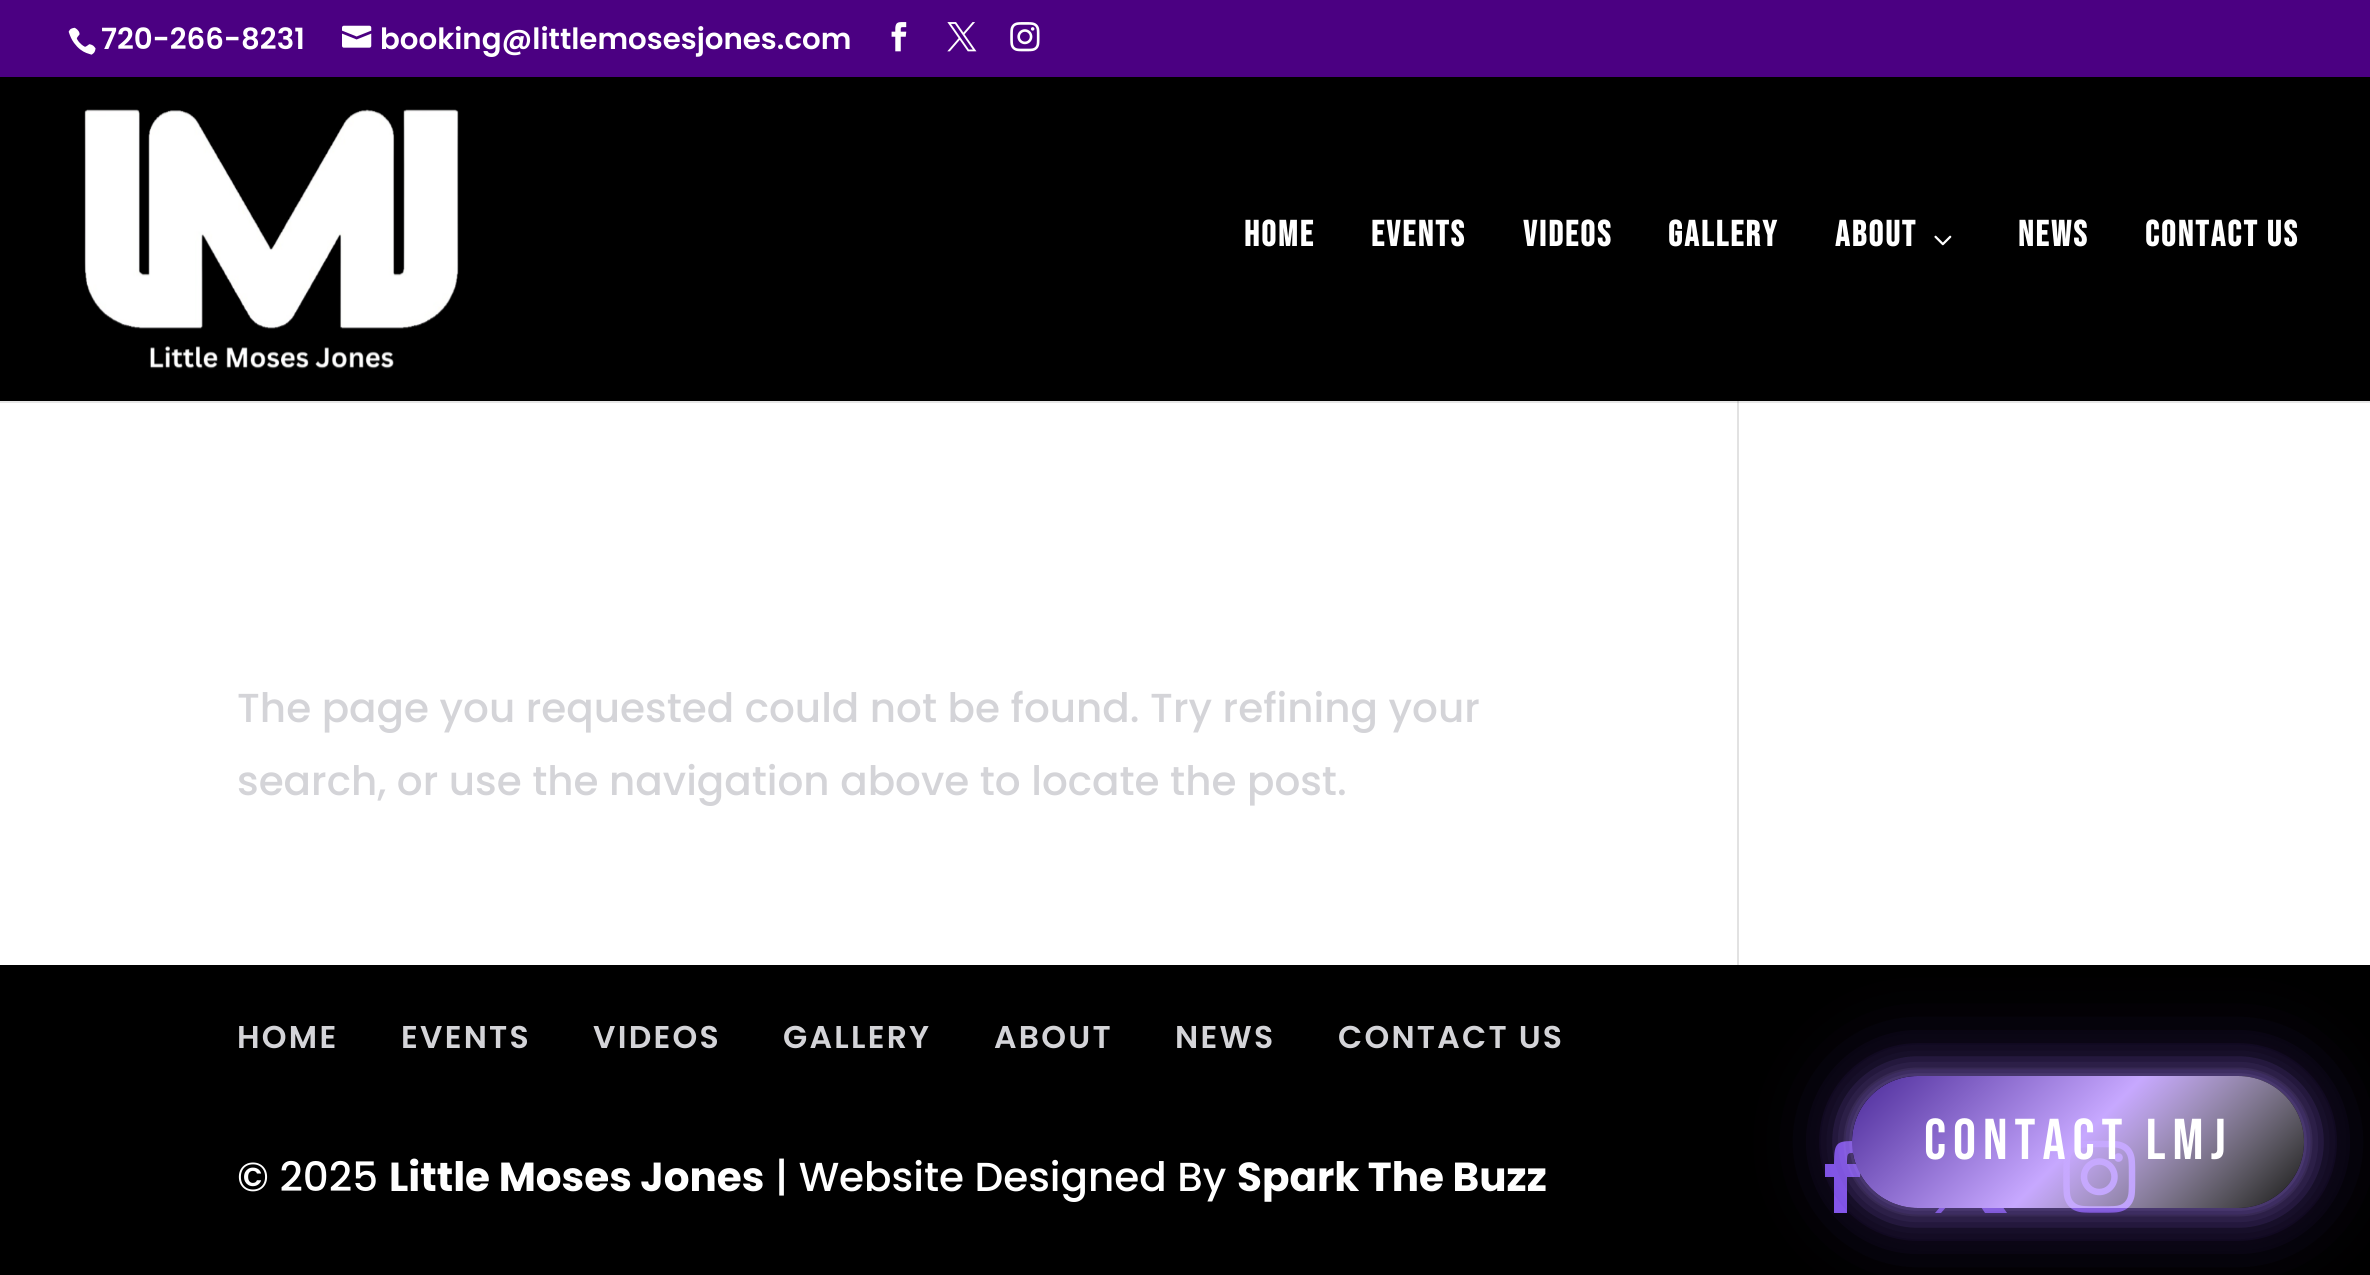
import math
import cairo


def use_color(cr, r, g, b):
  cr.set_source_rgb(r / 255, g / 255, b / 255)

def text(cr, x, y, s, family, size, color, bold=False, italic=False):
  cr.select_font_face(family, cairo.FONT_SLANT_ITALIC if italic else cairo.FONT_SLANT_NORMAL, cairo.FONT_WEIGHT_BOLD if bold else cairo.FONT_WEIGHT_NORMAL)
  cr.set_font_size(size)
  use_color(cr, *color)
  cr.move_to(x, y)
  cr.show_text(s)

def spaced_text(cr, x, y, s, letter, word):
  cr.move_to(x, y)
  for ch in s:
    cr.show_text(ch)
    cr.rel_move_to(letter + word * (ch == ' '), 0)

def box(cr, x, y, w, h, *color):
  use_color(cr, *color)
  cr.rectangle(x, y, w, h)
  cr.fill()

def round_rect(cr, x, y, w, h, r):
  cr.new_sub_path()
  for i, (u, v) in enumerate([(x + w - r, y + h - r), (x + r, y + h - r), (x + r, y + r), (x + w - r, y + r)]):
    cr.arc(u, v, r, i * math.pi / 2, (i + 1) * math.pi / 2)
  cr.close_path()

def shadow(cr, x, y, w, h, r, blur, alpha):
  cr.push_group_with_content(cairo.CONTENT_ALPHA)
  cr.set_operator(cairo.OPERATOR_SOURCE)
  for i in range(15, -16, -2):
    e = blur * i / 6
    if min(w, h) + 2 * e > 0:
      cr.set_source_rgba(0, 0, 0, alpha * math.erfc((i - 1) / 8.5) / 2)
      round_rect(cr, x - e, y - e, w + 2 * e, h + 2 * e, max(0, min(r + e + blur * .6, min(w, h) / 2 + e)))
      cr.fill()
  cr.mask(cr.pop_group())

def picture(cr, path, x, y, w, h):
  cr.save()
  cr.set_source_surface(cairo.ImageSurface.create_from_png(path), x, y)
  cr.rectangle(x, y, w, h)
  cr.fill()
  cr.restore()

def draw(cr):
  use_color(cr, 0, 0, 0)
  cr.paint()
  box(cr, 0, 0, 2370, 77, 75, 0, 130)
  picture(cr, "img_01.png", 68, 27, 28, 28)
  picture(cr, "img_02.png", 342, 25, 30, 23)
  picture(cr, "img_03.png", 891, 22, 16, 30)
  picture(cr, "img_04.png", 947, 22, 30, 30)
  picture(cr, "img_05.png", 1010, 22, 30, 30)
  box(cr, 0, 401, 2370, 564, 255, 255, 255)
  box(cr, 1737, 398, 2, 567, 226, 226, 226)
  cr.set_source_rgba(0, 0, 0, 0.1)
  cr.new_path()
  cr.move_to(0, 400)
  cr.line_to(0, 403)
  cr.line_to(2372, 403)
  cr.line_to(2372, 79)
  cr.line_to(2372, 400)
  cr.close_path()
  cr.fill()
  box(cr, 1737, 398, 2, 3, 0, 0, 0)
  picture(cr, "img_06.png", 84, 109, 375, 260)
  picture(cr, "img_07.png", 1934, 235, 18, 11)
  use_color(cr, 139, 92, 246)
  cr.new_path()
  cr.move_to(1834, 1213)
  cr.line_to(1847, 1213)
  cr.line_to(1847, 1177)
  cr.line_to(1860, 1177)
  cr.line_to(1861, 1164)
  cr.line_to(1847, 1164)
  cr.curve_to(1847, 1151, 1847, 1153, 1861, 1153)
  cr.line_to(1861, 1141)
  cr.curve_to(1837, 1141, 1834, 1140, 1834, 1164)
  cr.line_to(1825, 1164)
  cr.line_to(1825, 1177)
  cr.line_to(1834, 1177)
  cr.close_path()
  cr.fill()
  cr.new_path()
  cr.move_to(1935, 1141)
  cr.line_to(1963, 1180)
  cr.line_to(1935, 1213)
  cr.line_to(1941, 1213)
  cr.line_to(1966, 1184)
  cr.line_to(1985, 1213)
  cr.line_to(2007, 1213)
  cr.line_to(1978, 1171)
  cr.line_to(2004, 1141)
  cr.line_to(1997, 1141)
  cr.line_to(1975, 1167)
  cr.line_to(1957, 1141)
  cr.close_path()
  cr.move_to(1944, 1145)
  cr.line_to(1954, 1145)
  cr.line_to(1998, 1208)
  cr.line_to(1988, 1208)
  cr.close_path()
  cr.fill()
  picture(cr, "img_08.png", 2063, 1140, 73, 73)
  cr.save()
  cr.set_fill_rule(cairo.FILL_RULE_EVEN_ODD)
  cr.new_path()
  cr.move_to(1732, 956)
  cr.line_to(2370, 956)
  cr.line_to(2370, 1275)
  cr.line_to(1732, 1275)
  cr.close_path()
  cr.move_to(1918, 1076)
  cr.line_to(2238, 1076)
  cr.curve_to(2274.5, 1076, 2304, 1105.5, 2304, 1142)
  cr.curve_to(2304, 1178.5, 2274.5, 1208, 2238, 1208)
  cr.line_to(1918, 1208)
  cr.curve_to(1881.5, 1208, 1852, 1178.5, 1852, 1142)
  cr.curve_to(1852, 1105.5, 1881.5, 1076, 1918, 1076)
  cr.close_path()
  cr.clip()
  use_color(cr, 75, 42, 153)
  shadow(cr, 1852, 1076, 452, 132, 66, 39.5, 0.8)
  cr.restore()
  cr.save()
  cr.set_fill_rule(cairo.FILL_RULE_EVEN_ODD)
  cr.new_path()
  cr.move_to(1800, 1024)
  cr.line_to(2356, 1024)
  cr.line_to(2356, 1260)
  cr.line_to(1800, 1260)
  cr.close_path()
  cr.move_to(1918, 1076)
  cr.line_to(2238, 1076)
  cr.curve_to(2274.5, 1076, 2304, 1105.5, 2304, 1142)
  cr.curve_to(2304, 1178.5, 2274.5, 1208, 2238, 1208)
  cr.line_to(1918, 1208)
  cr.curve_to(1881.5, 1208, 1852, 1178.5, 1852, 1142)
  cr.curve_to(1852, 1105.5, 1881.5, 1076, 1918, 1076)
  cr.close_path()
  cr.clip()
  use_color(cr, 199, 168, 255)
  shadow(cr, 1852, 1076, 452, 132, 66, 17, 0.5)
  cr.restore()
  gradient = cairo.LinearGradient(1932, 996, 2224, 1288)
  gradient.add_color_stop_rgba(0, 0.294, 0.165, 0.6, 1)
  gradient.add_color_stop_rgba(0.5, 0.78, 0.659, 1, 1)
  gradient.add_color_stop_rgba(1, 1, 1, 1, 0.08)
  cr.set_source(gradient)
  round_rect(cr, 1852, 1076, 452, 132, 66)
  cr.fill()
  text(cr, 101, 49, "720-266-8231", "Poppins SemiBold", 29.25, (255, 255, 255))
  text(cr, 380, 49, "booking@littlemosesjones.com", "Poppins SemiBold", 29.25, (255, 255, 255))
  cr.select_font_face("Bebas Neue", cairo.FONT_SLANT_NORMAL, cairo.FONT_WEIGHT_BOLD)
  cr.set_font_size(36)
  spaced_text(cr, 1244, 246, "HOME", 2.25, 0)
  spaced_text(cr, 1371, 246, "EVENTS", 2.25, 0)
  spaced_text(cr, 1523, 246, "VIDEOS", 2.25, 0)
  spaced_text(cr, 1668, 246, "GALLERY", 2.25, 0)
  spaced_text(cr, 1835, 246, "ABOUT", 2.25, 0)
  spaced_text(cr, 2018, 246, "NEWS", 2.25, 0)
  spaced_text(cr, 2145, 246, "CONTACT US", 2.25, 0)
  text(cr, 237, 722, "The page you requested could not be found. Try refining your", "Poppins Medium", 40.5, (212, 212, 216))
  text(cr, 237, 795, "search, or use the navigation above to locate the post.", "Poppins Medium", 40.5, (212, 212, 216))
  cr.select_font_face("Poppins SemiBold")
  cr.set_font_size(31.5)
  spaced_text(cr, 237, 1048, "HOME", 2.25, 0)
  spaced_text(cr, 401, 1048, "EVENTS", 2.25, 0)
  spaced_text(cr, 593, 1048, "VIDEOS", 2.25, 0)
  spaced_text(cr, 783, 1048, "GALLERY", 2.25, 0)
  spaced_text(cr, 994, 1048, "ABOUT", 2.25, 0)
  spaced_text(cr, 1175, 1048, "NEWS", 2.25, 0)
  spaced_text(cr, 1338, 1048, "CONTACT US", 2.25, 0)
  text(cr, 237, 1191, "© 2025", "Poppins Medium", 40.5, (255, 255, 255))
  text(cr, 389, 1191, "Little Moses Jones", "Poppins", 40.5, (255, 255, 255), bold=True)
  text(cr, 775, 1191, "| Website Designed By", "Poppins Medium", 40.5, (255, 255, 255))
  text(cr, 1237, 1191, "Spark The Buzz", "Poppins", 40.5, (255, 255, 255), bold=True)
  cr.select_font_face("Bebas Neue")
  cr.set_font_size(57.5)
  spaced_text(cr, 1924, 1159, "CONTACT LMJ", 7, 0)


surface = cairo.ImageSurface(cairo.FORMAT_RGB24, 2370, 1275)
cr = cairo.Context(surface)
options = cairo.FontOptions()
options.set_hint_metrics(cairo.HINT_METRICS_OFF)
options.set_hint_style(cairo.HINT_STYLE_NONE)
cr.set_font_options(options)
cr.set_miter_limit(4)
draw(cr)
surface.write_to_png("out.png")
